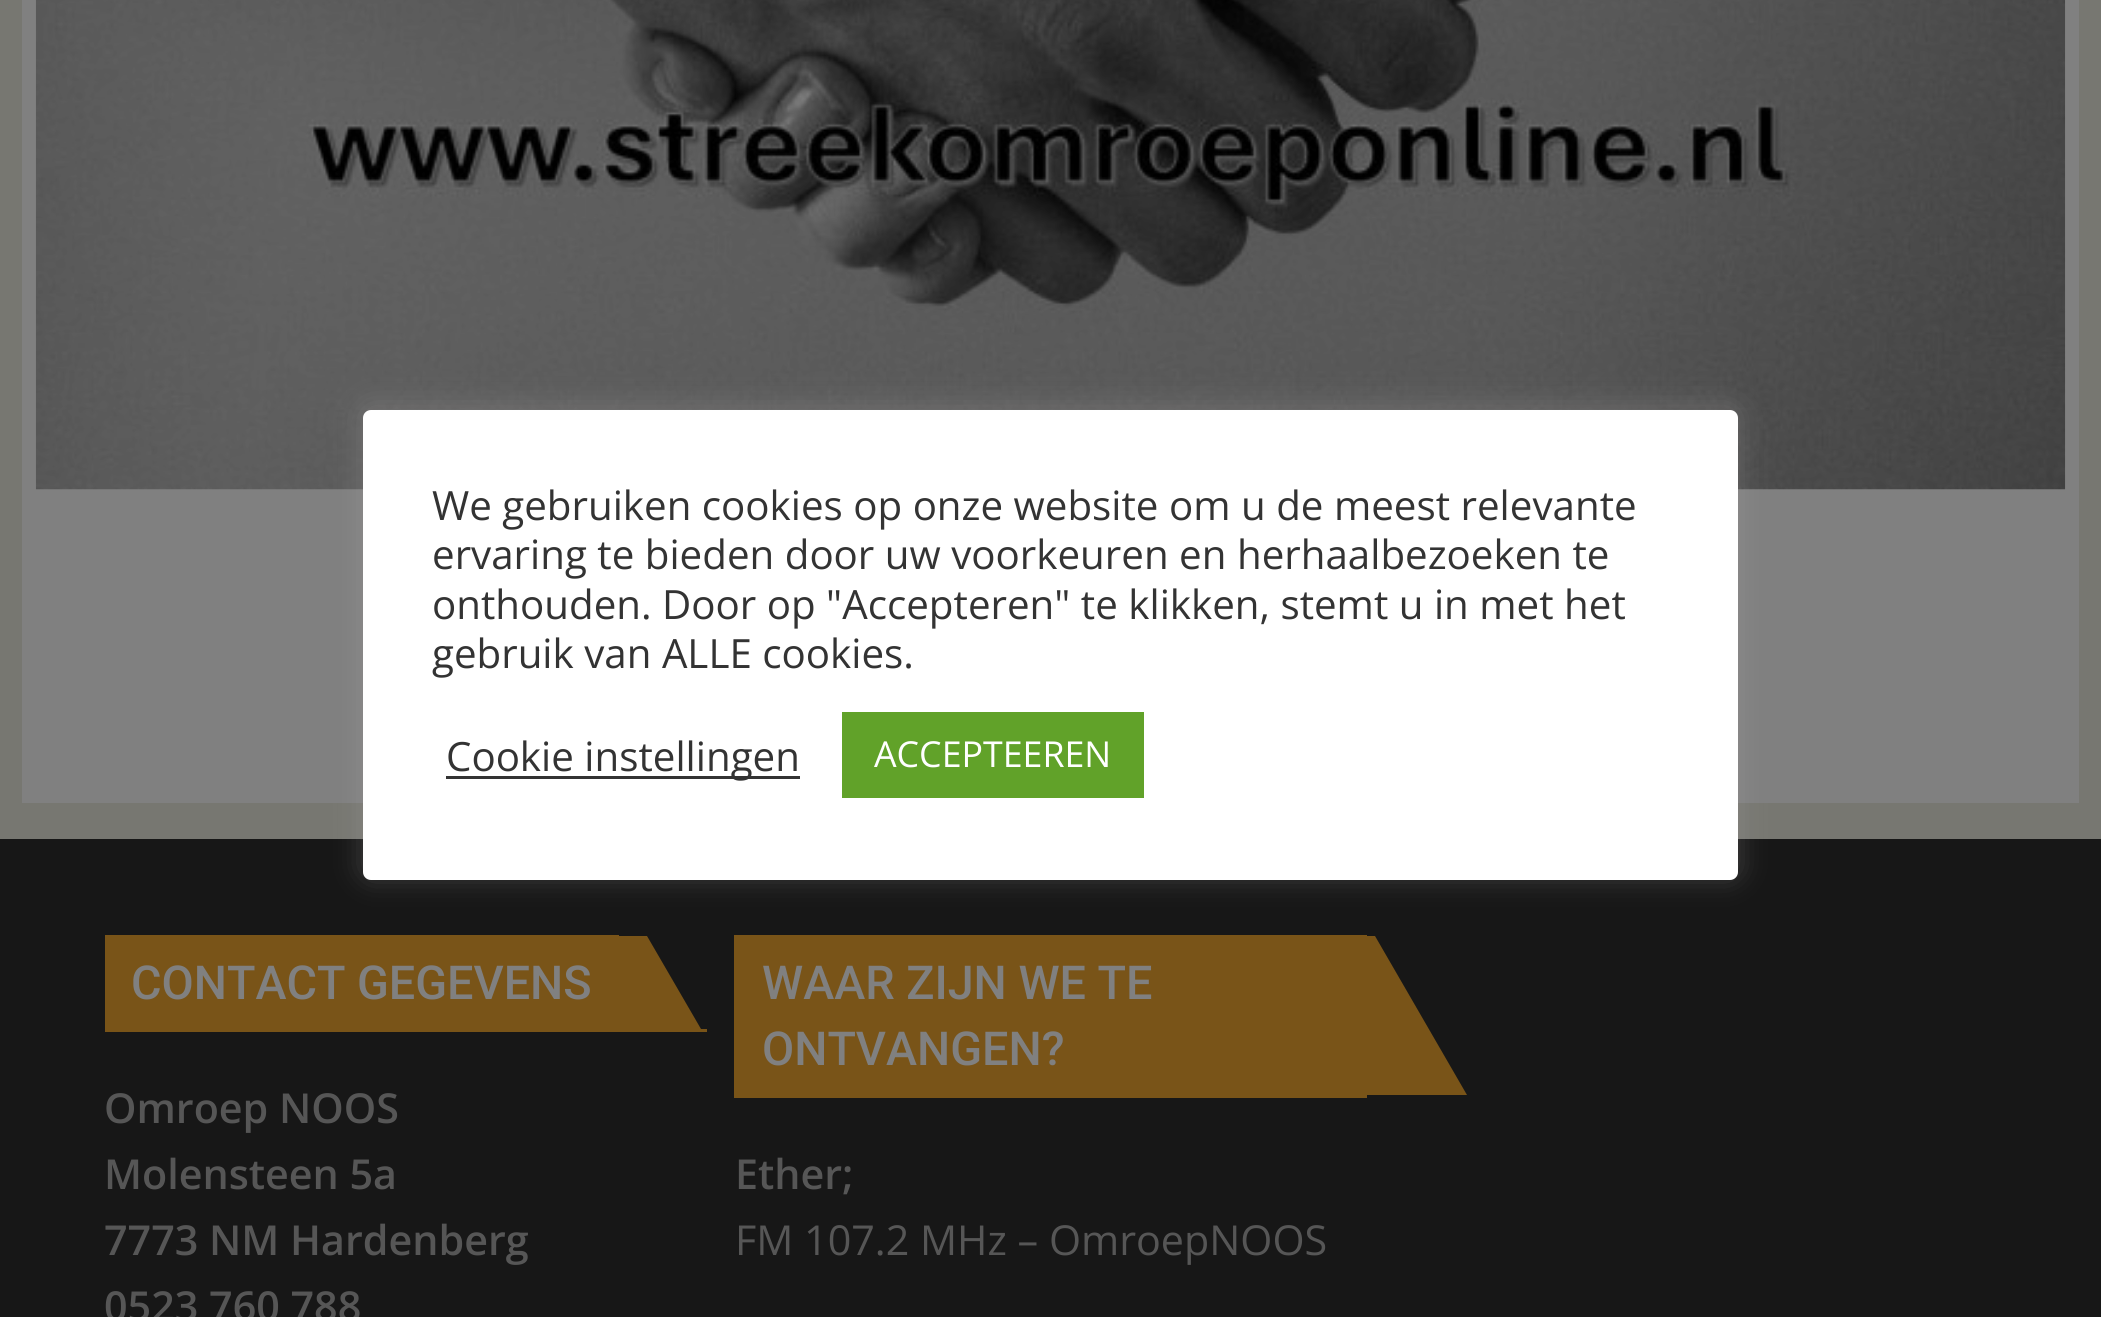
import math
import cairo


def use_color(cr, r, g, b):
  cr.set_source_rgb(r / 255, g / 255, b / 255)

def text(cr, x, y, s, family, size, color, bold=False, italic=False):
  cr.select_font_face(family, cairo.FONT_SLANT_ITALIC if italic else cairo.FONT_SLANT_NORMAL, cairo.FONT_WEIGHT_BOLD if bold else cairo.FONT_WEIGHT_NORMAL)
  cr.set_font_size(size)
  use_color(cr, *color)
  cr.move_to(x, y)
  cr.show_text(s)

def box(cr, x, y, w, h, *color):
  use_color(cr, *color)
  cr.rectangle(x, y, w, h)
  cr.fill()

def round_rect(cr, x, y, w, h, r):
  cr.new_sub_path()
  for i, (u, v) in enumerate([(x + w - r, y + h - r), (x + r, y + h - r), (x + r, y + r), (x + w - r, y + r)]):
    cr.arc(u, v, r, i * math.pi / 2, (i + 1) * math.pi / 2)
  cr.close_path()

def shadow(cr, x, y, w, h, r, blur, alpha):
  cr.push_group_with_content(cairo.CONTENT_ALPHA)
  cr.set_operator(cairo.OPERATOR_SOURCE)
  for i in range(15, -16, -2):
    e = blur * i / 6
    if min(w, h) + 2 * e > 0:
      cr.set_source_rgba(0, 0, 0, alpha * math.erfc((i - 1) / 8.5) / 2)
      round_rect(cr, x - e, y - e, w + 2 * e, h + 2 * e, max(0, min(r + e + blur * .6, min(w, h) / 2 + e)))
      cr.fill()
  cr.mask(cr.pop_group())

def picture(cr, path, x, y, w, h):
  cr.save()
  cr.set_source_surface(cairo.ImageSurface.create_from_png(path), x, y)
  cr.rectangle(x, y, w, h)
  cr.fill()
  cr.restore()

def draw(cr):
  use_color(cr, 119, 119, 113)
  cr.paint()
  box(cr, 22, 0, 2057, 803, 128, 128, 128)
  picture(cr, "img_01.png", 35, 0, 2031, 490)
  box(cr, 0, 839, 2101, 478, 23, 23, 23)
  use_color(cr, 172, 171, 171)
  shadow(cr, 363, 407, 1375, 470, 8, 14, 0.3)
  use_color(cr, 255, 255, 255)
  round_rect(cr, 363, 410, 1375, 470, 8)
  cr.fill()
  box(cr, 446, 776, 354, 3, 51, 51, 51)
  box(cr, 842, 712, 302, 86, 97, 162, 41)
  box(cr, 105, 1029, 602, 3, 121, 84, 24)
  box(cr, 105, 935, 514, 94, 121, 84, 24)
  cr.new_path()
  cr.move_to(537, 936)
  cr.line_to(647, 936)
  cr.line_to(701, 1029)
  cr.line_to(591, 1029)
  cr.close_path()
  cr.fill()
  box(cr, 734, 935, 633, 163, 121, 84, 24)
  cr.new_path()
  cr.move_to(1265, 936)
  cr.line_to(1375, 936)
  cr.line_to(1467, 1095)
  cr.line_to(1357, 1095)
  cr.close_path()
  cr.fill()
  text(cr, 432, 520, "We gebruiken cookies op onze website om u de meest relevante", "Open Sans", 40.3, (51, 51, 51))
  text(cr, 432, 569, "ervaring te bieden door uw voorkeuren en herhaalbezoeken te", "Open Sans", 40.3, (51, 51, 51))
  text(cr, 432, 619, "onthouden. Door op \"Accepteren\" te klikken, stemt u in met het", "Open Sans", 40.3, (51, 51, 51))
  text(cr, 432, 668, "gebruik van ALLE cookies.", "Open Sans", 40.3, (51, 51, 51))
  text(cr, 446, 771, "Cookie instellingen", "Open Sans", 40.3, (51, 51, 51))
  text(cr, 874, 767, "ACCEPTEEREN", "Open Sans", 35.75, (255, 255, 255))
  text(cr, 131, 999, "CONTACT GEGEVENS", "Roboto Medium", 46.75, (128, 128, 128))
  text(cr, 104, 1123, "Omroep NOOS", "Open Sans SemiBold", 41.25, (86, 86, 86))
  text(cr, 104, 1189, "Molensteen 5a", "Open Sans SemiBold", 41.25, (86, 86, 86))
  text(cr, 104, 1255, "7773 NM Hardenberg", "Open Sans SemiBold", 41.25, (86, 86, 86))
  text(cr, 104, 1321, "0523 760 788", "Open Sans SemiBold", 41.25, (86, 86, 86))
  text(cr, 762, 999, "WAAR ZIJN WE TE", "Roboto Medium", 46.75, (128, 128, 128))
  text(cr, 762, 1065, "ONTVANGEN?", "Roboto Medium", 46.75, (128, 128, 128))
  text(cr, 735, 1189, "Ether;", "Open Sans SemiBold", 41.25, (86, 86, 86))
  text(cr, 735, 1255, "FM 107.2 MHz – OmroepNOOS", "Open Sans", 41.25, (86, 86, 86))


surface = cairo.ImageSurface(cairo.FORMAT_RGB24, 2101, 1317)
cr = cairo.Context(surface)
options = cairo.FontOptions()
options.set_hint_metrics(cairo.HINT_METRICS_OFF)
options.set_hint_style(cairo.HINT_STYLE_NONE)
cr.set_font_options(options)
cr.set_miter_limit(4)
draw(cr)
surface.write_to_png("out.png")
